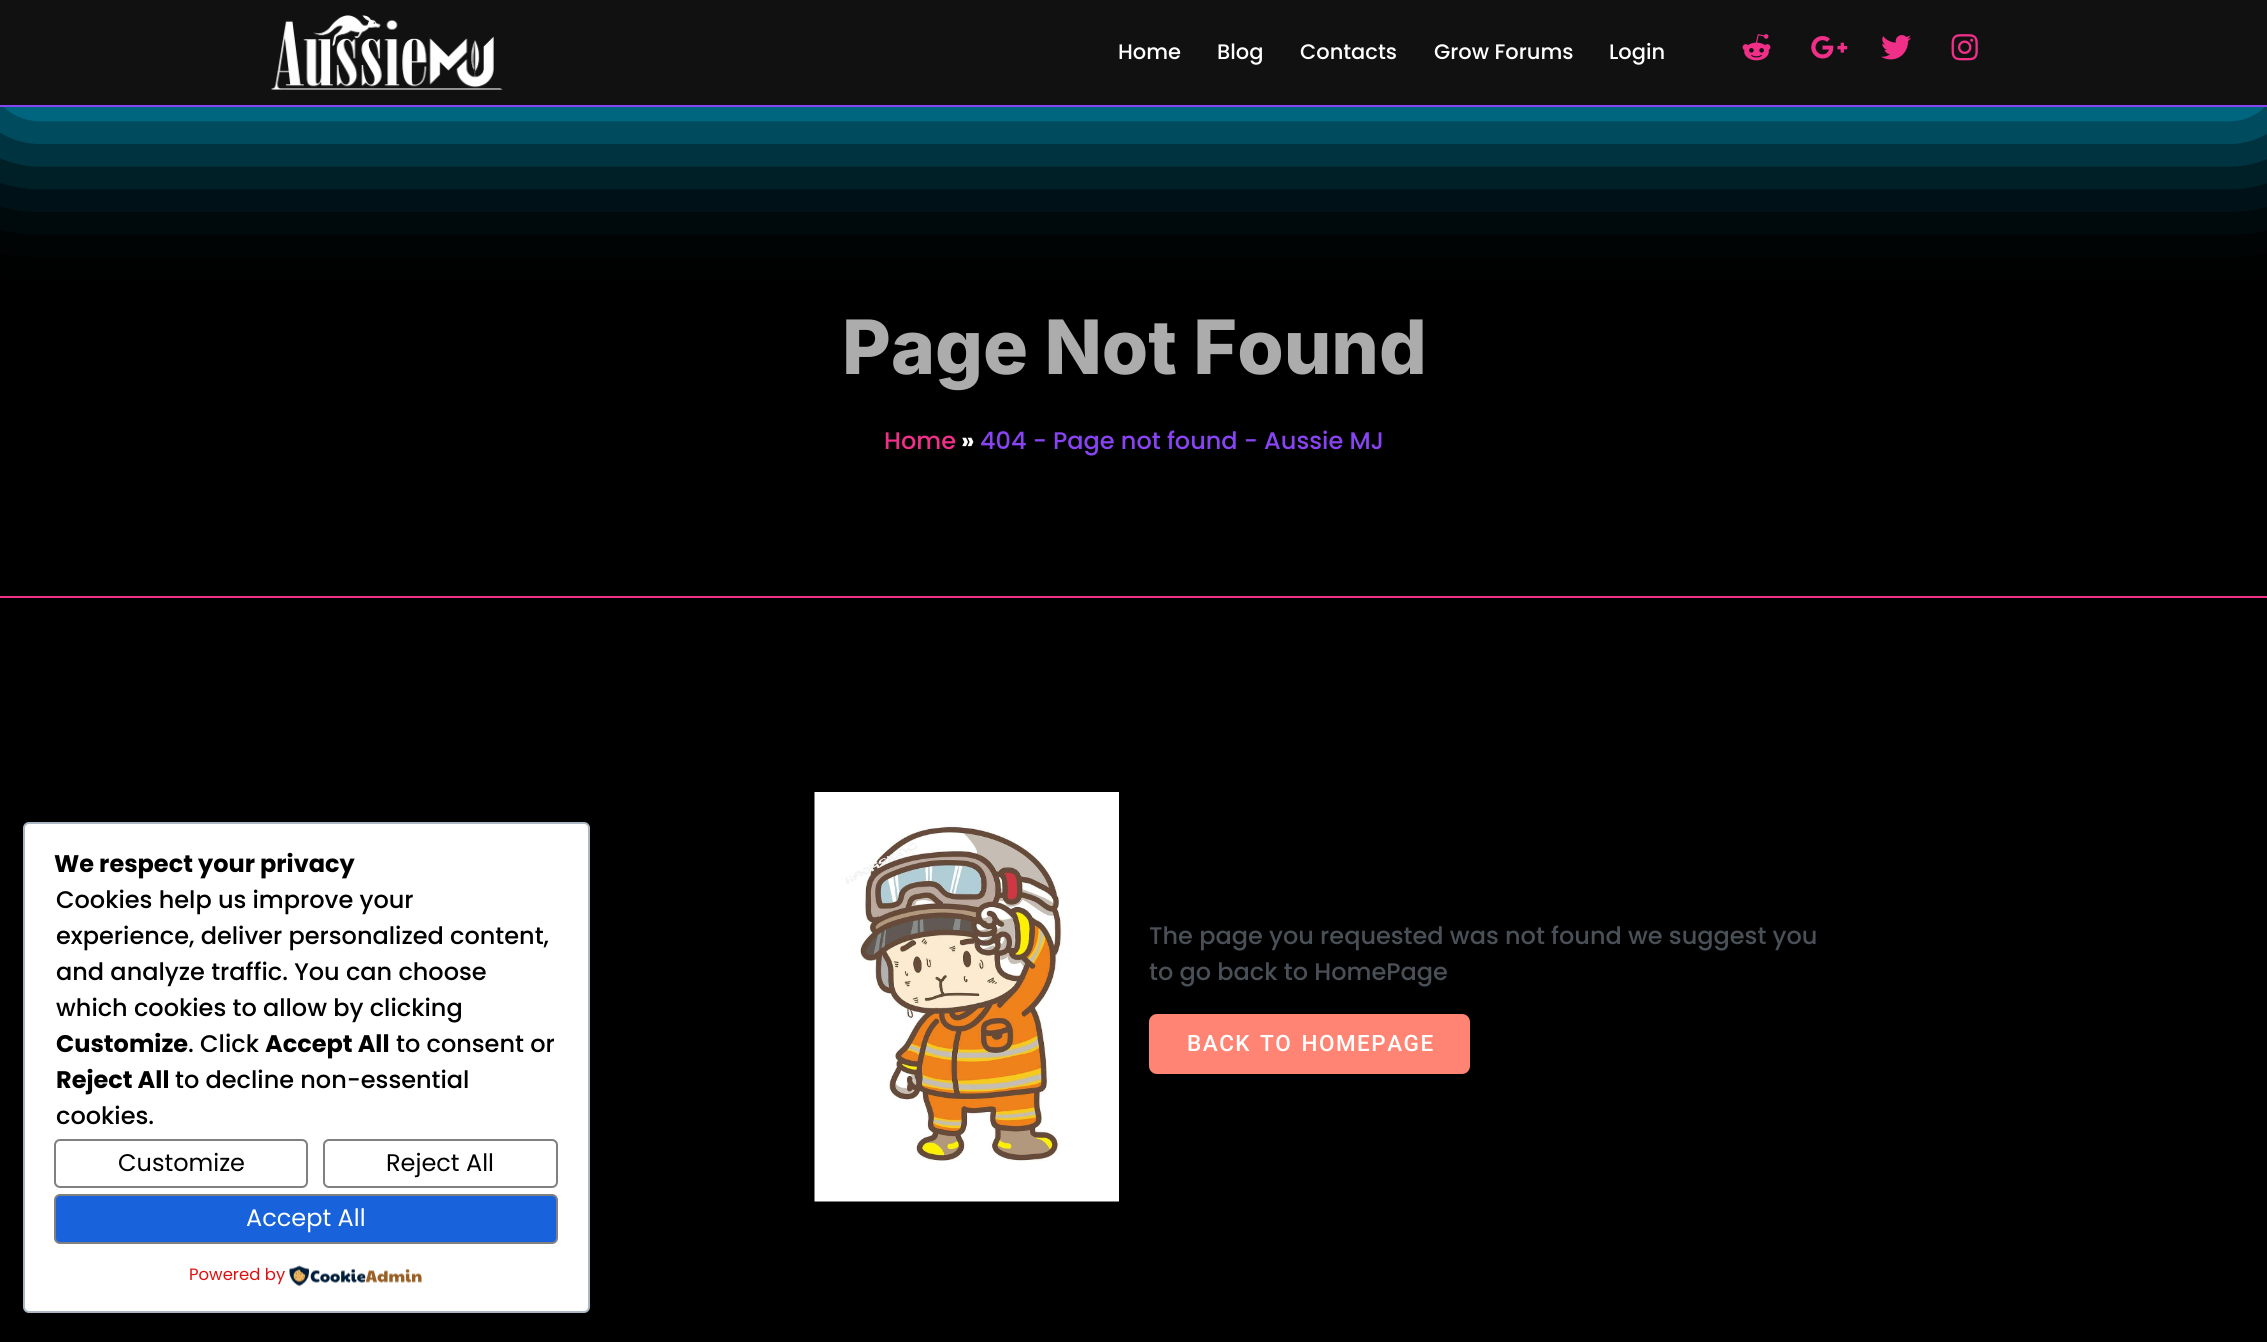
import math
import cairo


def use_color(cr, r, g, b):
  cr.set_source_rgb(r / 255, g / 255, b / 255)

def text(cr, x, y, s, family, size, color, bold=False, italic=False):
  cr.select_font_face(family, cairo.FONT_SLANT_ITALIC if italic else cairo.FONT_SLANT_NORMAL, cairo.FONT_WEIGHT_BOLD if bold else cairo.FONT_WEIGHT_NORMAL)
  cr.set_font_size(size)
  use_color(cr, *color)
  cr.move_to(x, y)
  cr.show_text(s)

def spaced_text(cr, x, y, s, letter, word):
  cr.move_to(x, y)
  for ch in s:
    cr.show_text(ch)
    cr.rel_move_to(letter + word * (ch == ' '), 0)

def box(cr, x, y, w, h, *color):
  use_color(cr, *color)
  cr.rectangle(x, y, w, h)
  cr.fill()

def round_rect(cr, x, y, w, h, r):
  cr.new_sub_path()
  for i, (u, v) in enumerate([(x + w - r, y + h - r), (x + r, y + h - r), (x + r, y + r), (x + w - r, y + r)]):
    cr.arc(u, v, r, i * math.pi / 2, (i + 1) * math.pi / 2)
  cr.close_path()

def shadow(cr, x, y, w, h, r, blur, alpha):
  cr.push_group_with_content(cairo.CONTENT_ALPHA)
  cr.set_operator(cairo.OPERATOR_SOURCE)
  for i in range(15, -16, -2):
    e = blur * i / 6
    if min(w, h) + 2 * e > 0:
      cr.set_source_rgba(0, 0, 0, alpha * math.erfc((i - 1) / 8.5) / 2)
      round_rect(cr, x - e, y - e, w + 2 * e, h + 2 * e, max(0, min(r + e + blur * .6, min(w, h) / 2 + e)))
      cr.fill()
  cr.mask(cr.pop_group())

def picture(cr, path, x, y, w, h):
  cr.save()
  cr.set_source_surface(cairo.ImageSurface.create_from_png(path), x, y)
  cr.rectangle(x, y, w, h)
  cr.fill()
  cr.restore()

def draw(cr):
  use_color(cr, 0, 0, 0)
  cr.paint()
  use_color(cr, 0, 204, 255)
  shadow(cr, -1, 0, 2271, 110, 0, 68, 1)
  box(cr, 0, 0, 2267, 105, 17, 17, 17)
  box(cr, 0, 105, 2267, 2, 136, 67, 242)
  picture(cr, "img_01.png", 271, 15, 232, 75)
  picture(cr, "img_02.png", 1742, 34, 29, 27)
  picture(cr, "img_03.png", 1811, 36, 37, 23)
  picture(cr, "img_04.png", 1881, 35, 30, 25)
  picture(cr, "img_05.png", 1951, 34, 27, 27)
  box(cr, 0, 596, 2267, 2, 239, 47, 136)
  use_color(cr, 255, 255, 255)
  round_rect(cr, 24, 823, 565, 489, 5)
  cr.fill_preserve()
  use_color(cr, 171, 184, 195)
  cr.stroke()
  round_rect(cr, 55, 1140, 252, 47, 5)
  use_color(cr, 128, 128, 128)
  cr.stroke()
  round_rect(cr, 324, 1140, 233, 47, 5)
  cr.stroke()
  use_color(cr, 24, 99, 220)
  round_rect(cr, 55, 1195, 502, 48, 5)
  cr.fill_preserve()
  use_color(cr, 128, 128, 128)
  cr.stroke()
  picture(cr, "img_06.png", 289, 1265, 133, 22)
  picture(cr, "img_07.png", 814, 792, 305, 410)
  use_color(cr, 255, 132, 116)
  round_rect(cr, 1149, 1014, 321, 60, 8)
  cr.fill()
  text(cr, 1118, 59, "Home", "Poppins Medium", 21, (255, 255, 255))
  text(cr, 1217, 59, "Blog", "Poppins Medium", 21, (255, 255, 255))
  text(cr, 1300, 59, "Contacts", "Poppins Medium", 21, (255, 255, 255))
  text(cr, 1434, 59, "Grow Forums", "Poppins Medium", 21, (255, 255, 255))
  text(cr, 1609, 59, "Login", "Poppins Medium", 21, (255, 255, 255))
  text(cr, 842, 374, "Page Not Found", "Inter ExtraBold", 75, (172, 172, 172))
  text(cr, 884, 449, "Home", "Poppins Medium", 24, (239, 47, 136))
  text(cr, 961, 449, "»", "Poppins", 24, (255, 255, 255), bold=True)
  text(cr, 980, 449, "404 - Page not found - Aussie MJ", "Poppins Medium", 24, (136, 67, 242))
  text(cr, 54, 872, "We respect your privacy", "Poppins", 24, (0, 0, 0), bold=True)
  text(cr, 56, 908, "Cookies help us improve your", "Poppins Medium", 24, (0, 0, 0))
  text(cr, 56, 944, "experience, deliver personalized content,", "Poppins Medium", 24, (0, 0, 0))
  text(cr, 56, 980, "and analyze traffic. You can choose", "Poppins Medium", 24, (0, 0, 0))
  text(cr, 56, 1016, "which cookies to allow by clicking", "Poppins Medium", 24, (0, 0, 0))
  text(cr, 56, 1052, "Customize", "Poppins", 24, (0, 0, 0), bold=True)
  text(cr, 188, 1052, ". Click", "Poppins Medium", 24, (0, 0, 0))
  text(cr, 265, 1052, "Accept All", "Poppins", 24, (0, 0, 0), bold=True)
  text(cr, 396, 1052, "to consent or", "Poppins Medium", 24, (0, 0, 0))
  text(cr, 56, 1088, "Reject All", "Poppins", 24, (0, 0, 0), bold=True)
  text(cr, 175, 1088, "to decline non-essential", "Poppins Medium", 24, (0, 0, 0))
  text(cr, 56, 1124, "cookies.", "Poppins Medium", 24, (0, 0, 0))
  text(cr, 118, 1171, "Customize", "Poppins", 24, (0, 0, 0))
  text(cr, 386, 1171, "Reject All", "Poppins", 24, (0, 0, 0))
  text(cr, 246, 1226, "Accept All", "Poppins", 24, (255, 255, 255))
  text(cr, 189, 1280, "Powered by", "Poppins", 16.5, (224, 16, 16))
  text(cr, 1149, 944, "The page you requested was not found we suggest you", "Poppins Medium", 24, (73, 80, 87))
  text(cr, 1149, 980, "to go back to HomePage", "Poppins Medium", 24, (73, 80, 87))
  cr.select_font_face("Roboto Medium")
  cr.set_font_size(22.5)
  use_color(cr, 255, 255, 255)
  spaced_text(cr, 1187, 1051, "BACK TO HOMEPAGE", 1.5, 2)


surface = cairo.ImageSurface(cairo.FORMAT_RGB24, 2267, 1342)
cr = cairo.Context(surface)
options = cairo.FontOptions()
options.set_hint_metrics(cairo.HINT_METRICS_OFF)
options.set_hint_style(cairo.HINT_STYLE_NONE)
cr.set_font_options(options)
cr.set_miter_limit(4)
draw(cr)
surface.write_to_png("out.png")
